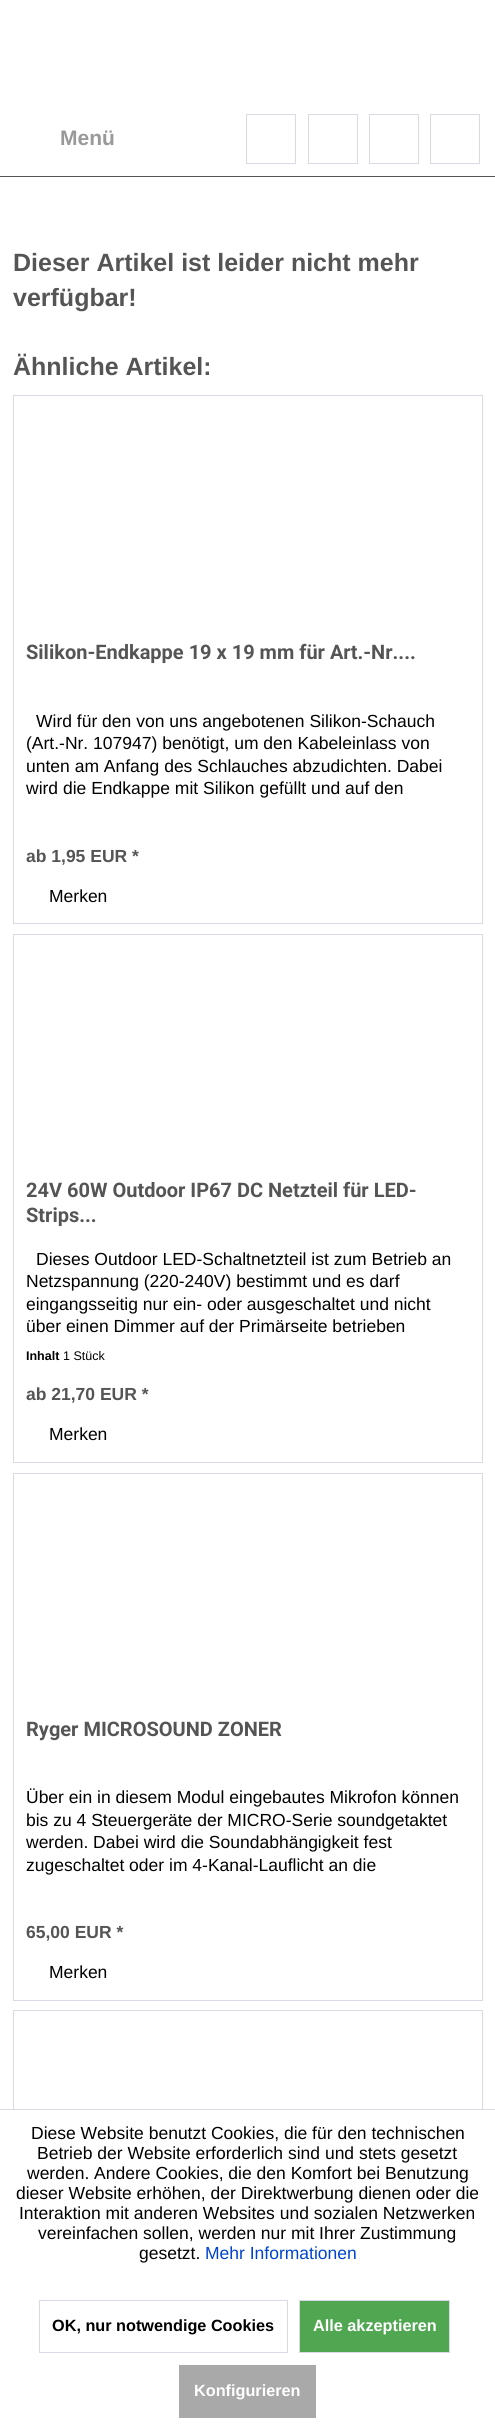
import math
import cairo


def use_color(cr, r, g, b):
  cr.set_source_rgb(r / 255, g / 255, b / 255)

def text(cr, x, y, s, family, size, color, bold=False, italic=False):
  cr.select_font_face(family, cairo.FONT_SLANT_ITALIC if italic else cairo.FONT_SLANT_NORMAL, cairo.FONT_WEIGHT_BOLD if bold else cairo.FONT_WEIGHT_NORMAL)
  cr.set_font_size(size)
  use_color(cr, *color)
  cr.move_to(x, y)
  cr.show_text(s)

def box(cr, x, y, w, h, *color):
  use_color(cr, *color)
  cr.rectangle(x, y, w, h)
  cr.fill()

def draw(cr):
  use_color(cr, 255, 255, 255)
  cr.paint()
  box(cr, 0, 176, 495, 1, 85, 85, 85)
  cr.rectangle(246.5, 114.5, 49, 49)
  use_color(cr, 218, 218, 229)
  cr.set_line_width(1)
  cr.stroke()
  cr.rectangle(308.5, 114.5, 49, 49)
  cr.stroke()
  cr.rectangle(369.5, 114.5, 49, 49)
  cr.stroke()
  cr.rectangle(430.5, 114.5, 49, 49)
  cr.stroke()
  cr.rectangle(13.5, 395.5, 469, 528)
  cr.stroke()
  cr.rectangle(13.5, 934.5, 469, 528)
  cr.stroke()
  cr.rectangle(13.5, 1473.5, 469, 527)
  cr.stroke()
  cr.rectangle(13.5, 2010.5, 469, 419)
  cr.stroke()
  box(cr, 13, 2110, 470, 319, 255, 255, 255)
  box(cr, 0, 2109, 495, 1, 218, 218, 229)
  cr.rectangle(39.5, 2300.5, 248, 52)
  cr.stroke()
  use_color(cr, 81, 167, 81)
  cr.rectangle(299.5, 2300.5, 150, 52)
  cr.fill_preserve()
  use_color(cr, 218, 218, 229)
  cr.stroke()
  box(cr, 179, 2365, 137, 53, 169, 169, 169)
  text(cr, 60, 145, "Menü", "Liberation Sans", 21, (153, 153, 153), bold=True)
  text(cr, 13, 271, "Dieser Artikel ist leider nicht mehr", "Liberation Sans", 25, (85, 85, 85), bold=True)
  text(cr, 13, 306, "verfügbar!", "Liberation Sans", 25, (85, 85, 85), bold=True)
  text(cr, 13, 375, "Ähnliche Artikel:", "Liberation Sans", 25, (85, 85, 85), bold=True)
  text(cr, 26, 659, "Silikon-Endkappe 19 x 19 mm für Art.-Nr....", "Roboto", 20, (85, 85, 85), bold=True)
  text(cr, 36, 727, "Wird für den von uns angebotenen Silikon-Schauch", "Liberation Sans", 17.5, (0, 0, 0))
  text(cr, 26, 749, "(Art.-Nr. 107947) benötigt, um den Kabeleinlass von", "Liberation Sans", 17.5, (0, 0, 0))
  text(cr, 26, 772, "unten am Anfang des Schlauches abzudichten. Dabei", "Liberation Sans", 17.5, (0, 0, 0))
  text(cr, 26, 794, "wird die Endkappe mit Silikon gefüllt und auf den", "Liberation Sans", 17.5, (0, 0, 0))
  text(cr, 26, 862, "ab 1,95 EUR *", "Liberation Sans", 17.5, (85, 85, 85), bold=True)
  text(cr, 49, 902, "Merken", "Liberation Sans", 17.5, (0, 0, 0))
  text(cr, 26, 1197, "24V 60W Outdoor IP67 DC Netzteil für LED-", "Roboto", 20, (85, 85, 85), bold=True)
  text(cr, 26, 1222, "Strips...", "Roboto", 20, (85, 85, 85), bold=True)
  text(cr, 36, 1265, "Dieses Outdoor LED-Schaltnetzteil ist zum Betrieb an", "Liberation Sans", 17.5, (0, 0, 0))
  text(cr, 26, 1287, "Netzspannung (220-240V) bestimmt und es darf", "Liberation Sans", 17.5, (0, 0, 0))
  text(cr, 26, 1310, "eingangsseitig nur ein- oder ausgeschaltet und nicht", "Liberation Sans", 17.5, (0, 0, 0))
  text(cr, 26, 1332, "über einen Dimmer auf der Primärseite betrieben", "Liberation Sans", 17.5, (0, 0, 0))
  text(cr, 26, 1360, "Inhalt", "Liberation Sans", 12.5, (0, 0, 0), bold=True)
  text(cr, 63, 1360, "1 Stück", "Liberation Sans", 12.5, (0, 0, 0))
  text(cr, 26, 1400, "ab 21,70 EUR *", "Liberation Sans", 17.5, (85, 85, 85), bold=True)
  text(cr, 49, 1440, "Merken", "Liberation Sans", 17.5, (0, 0, 0))
  text(cr, 26, 1736, "Ryger MICROSOUND ZONER", "Roboto", 20, (85, 85, 85), bold=True)
  text(cr, 26, 1803, "Über ein in diesem Modul eingebautes Mikrofon können", "Liberation Sans", 17.5, (0, 0, 0))
  text(cr, 26, 1826, "bis zu 4 Steuergeräte der MICRO-Serie soundgetaktet", "Liberation Sans", 17.5, (0, 0, 0))
  text(cr, 26, 1848, "werden. Dabei wird die Soundabhängigkeit fest", "Liberation Sans", 17.5, (0, 0, 0))
  text(cr, 26, 1871, "zugeschaltet oder im 4-Kanal-Lauflicht an die", "Liberation Sans", 17.5, (0, 0, 0))
  text(cr, 26, 1938, "65,00 EUR *", "Liberation Sans", 17.5, (85, 85, 85), bold=True)
  text(cr, 49, 1978, "Merken", "Liberation Sans", 17.5, (0, 0, 0))
  text(cr, 31, 2139, "Diese Website benutzt Cookies, die für den technischen", "Liberation Sans", 17.5, (0, 0, 0))
  text(cr, 37, 2159, "Betrieb der Website erforderlich sind und stets gesetzt", "Liberation Sans", 17.5, (0, 0, 0))
  text(cr, 27, 2179, "werden. Andere Cookies, die den Komfort bei Benutzung", "Liberation Sans", 17.5, (0, 0, 0))
  text(cr, 16, 2199, "dieser Website erhöhen, der Direktwerbung dienen oder die", "Liberation Sans", 17.5, (0, 0, 0))
  text(cr, 19, 2219, "Interaktion mit anderen Websites und sozialen Netzwerken", "Liberation Sans", 17.5, (0, 0, 0))
  text(cr, 38, 2239, "vereinfachen sollen, werden nur mit Ihrer Zustimmung", "Liberation Sans", 17.5, (0, 0, 0))
  text(cr, 139, 2259, "gesetzt.", "Liberation Sans", 17.5, (0, 0, 0))
  text(cr, 205, 2259, "Mehr Informationen", "Liberation Sans", 17.5, (0, 68, 204))
  text(cr, 52, 2331, "OK, nur notwendige Cookies", "Liberation Sans", 16.25, (0, 0, 0), bold=True)
  text(cr, 313, 2331, "Alle akzeptieren", "Liberation Sans", 16.25, (255, 255, 255), bold=True)
  text(cr, 194, 2396, "Konfigurieren", "Liberation Sans", 16.25, (255, 255, 255), bold=True)


surface = cairo.ImageSurface(cairo.FORMAT_RGB24, 495, 2429)
cr = cairo.Context(surface)
options = cairo.FontOptions()
options.set_hint_metrics(cairo.HINT_METRICS_OFF)
options.set_hint_style(cairo.HINT_STYLE_NONE)
cr.set_font_options(options)
cr.set_miter_limit(4)
draw(cr)
surface.write_to_png("out.png")
